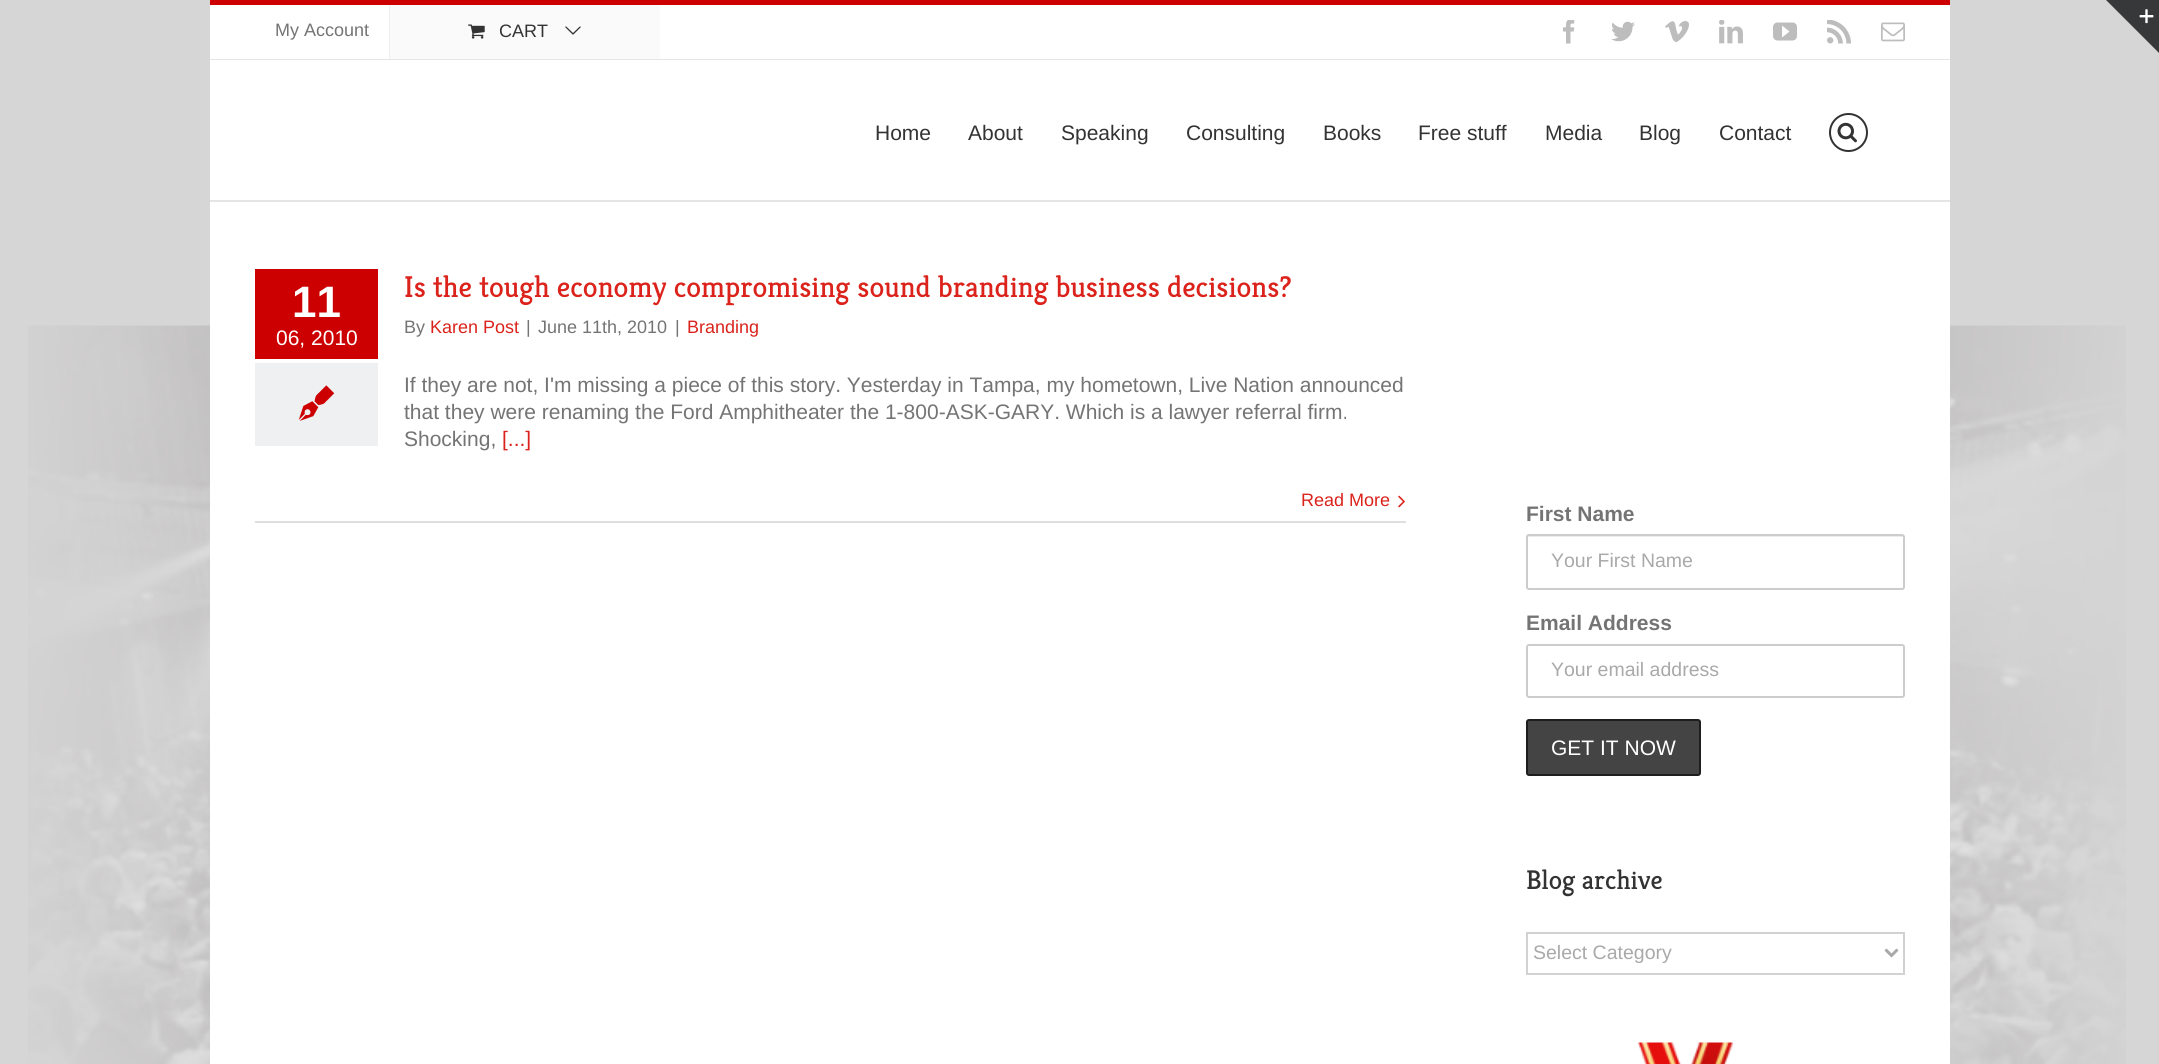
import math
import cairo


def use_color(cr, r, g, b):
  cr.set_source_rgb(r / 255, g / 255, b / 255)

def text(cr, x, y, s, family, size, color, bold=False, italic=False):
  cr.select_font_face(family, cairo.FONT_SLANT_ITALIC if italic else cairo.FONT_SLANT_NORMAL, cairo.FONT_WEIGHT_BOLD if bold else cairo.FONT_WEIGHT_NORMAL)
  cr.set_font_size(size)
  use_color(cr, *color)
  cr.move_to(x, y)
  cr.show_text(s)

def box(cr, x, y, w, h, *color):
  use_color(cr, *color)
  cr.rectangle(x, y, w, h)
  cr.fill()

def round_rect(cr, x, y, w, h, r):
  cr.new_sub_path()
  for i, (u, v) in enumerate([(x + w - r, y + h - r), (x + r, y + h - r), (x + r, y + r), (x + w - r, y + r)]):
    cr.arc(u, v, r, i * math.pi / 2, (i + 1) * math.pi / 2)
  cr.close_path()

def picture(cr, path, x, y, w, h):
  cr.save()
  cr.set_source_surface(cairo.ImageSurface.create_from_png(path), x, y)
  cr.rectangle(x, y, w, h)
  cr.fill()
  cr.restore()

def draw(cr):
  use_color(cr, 215, 214, 214)
  cr.paint()
  picture(cr, "img_01.png", 28, 325, 2098, 739)
  box(cr, 210, 5, 1740, 54, 255, 255, 255)
  box(cr, 210, 0, 1740, 5, 204, 0, 0)
  box(cr, 210, 59, 1740, 1, 229, 229, 229)
  box(cr, 389, 5, 1, 54, 239, 239, 239)
  box(cr, 390, 5, 270, 54, 250, 250, 250)
  picture(cr, "img_02.png", 468, 24, 17, 15)
  picture(cr, "img_03.png", 565, 26, 16, 9)
  picture(cr, "img_04.png", 1563, 20, 12, 24)
  picture(cr, "img_05.png", 1611, 21, 24, 21)
  picture(cr, "img_06.png", 1665, 21, 24, 21)
  picture(cr, "img_07.png", 1719, 20, 24, 24)
  picture(cr, "img_08.png", 1773, 22, 24, 19)
  picture(cr, "img_09.png", 1827, 20, 24, 24)
  picture(cr, "img_10.png", 1881, 22, 24, 20)
  box(cr, 210, 60, 1740, 140, 255, 255, 255)
  box(cr, 210, 200, 1740, 2, 229, 229, 229)
  cr.arc(1848.5, 132.5, 18.5, 0, 2 * math.pi)
  use_color(cr, 51, 51, 51)
  cr.stroke()
  picture(cr, "img_11.png", 1837, 122, 20, 21)
  use_color(cr, 54, 56, 57)
  cr.new_path()
  cr.move_to(2106, 0)
  cr.line_to(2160, 0)
  cr.line_to(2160, 54)
  cr.close_path()
  cr.fill()
  picture(cr, "img_12.png", 2139, 9, 15, 15)
  box(cr, 210, 202, 1740, 862, 255, 255, 255)
  box(cr, 255, 269, 123, 90, 204, 0, 0)
  box(cr, 255, 363, 123, 83, 238, 240, 242)
  picture(cr, "img_13.png", 298, 385, 37, 36)
  box(cr, 255, 521, 1151, 2, 224, 222, 222)
  picture(cr, "img_14.png", 1398, 495, 7, 13)
  use_color(cr, 236, 236, 236)
  cr.new_path()
  cr.move_to(1528, 537)
  cr.line_to(1902, 537)
  cr.line_to(1904, 538)
  cr.curve_to(1904, 537, 1904, 536, 1902, 536)
  cr.line_to(1528, 536)
  cr.curve_to(1527, 536, 1527, 537, 1527, 538)
  cr.close_path()
  cr.fill()
  round_rect(cr, 1527, 535, 377, 54, 2)
  use_color(cr, 204, 204, 204)
  cr.stroke()
  round_rect(cr, 1527, 645, 377, 52, 2)
  cr.stroke()
  use_color(cr, 68, 68, 68)
  round_rect(cr, 1527, 720, 173, 55, 2)
  cr.fill_preserve()
  use_color(cr, 30, 30, 30)
  cr.stroke()
  cr.rectangle(1527, 933, 377, 41)
  use_color(cr, 210, 210, 210)
  cr.stroke()
  cr.new_path()
  cr.move_to(1885.5, 949.5)
  cr.line_to(1891.5, 955.5)
  cr.line_to(1897.5, 949.5)
  use_color(cr, 170, 169, 169)
  cr.set_line_width(3)
  cr.stroke()
  picture(cr, "img_15.png", 1637, 1042, 97, 22)
  text(cr, 275, 36, "My Account", "Liberation Sans", 18, (116, 116, 116))
  text(cr, 499, 37, "CART", "Liberation Sans", 18, (51, 51, 51))
  text(cr, 875, 140, "Home", "Liberation Sans", 21, (51, 51, 51))
  text(cr, 968, 140, "About", "Liberation Sans", 21, (51, 51, 51))
  text(cr, 1061, 140, "Speaking", "Liberation Sans", 21, (51, 51, 51))
  text(cr, 1186, 140, "Consulting", "Liberation Sans", 21, (51, 51, 51))
  text(cr, 1323, 140, "Books", "Liberation Sans", 21, (51, 51, 51))
  text(cr, 1418, 140, "Free stuff", "Liberation Sans", 21, (51, 51, 51))
  text(cr, 1545, 140, "Media", "Liberation Sans", 21, (51, 51, 51))
  text(cr, 1639, 140, "Blog", "Liberation Sans", 21, (51, 51, 51))
  text(cr, 1719, 140, "Contact", "Liberation Sans", 21, (51, 51, 51))
  text(cr, 292, 317, "11", "Liberation Sans", 44, (255, 255, 255), bold=True)
  text(cr, 276, 345, "06, 2010", "Liberation Sans", 21, (255, 255, 255))
  text(cr, 404, 297, "Is the tough economy compromising sound branding business decisions?", "Kreon Light", 30, (219, 34, 27))
  text(cr, 404, 333, "By", "Liberation Sans", 18, (116, 116, 116))
  text(cr, 430, 333, "Karen Post", "Liberation Sans", 18, (219, 34, 27))
  text(cr, 526, 333, "|", "Liberation Sans", 18, (116, 116, 116))
  text(cr, 538, 333, "June 11th, 2010", "Liberation Sans", 18, (116, 116, 116))
  text(cr, 675, 333, "|", "Liberation Sans", 18, (116, 116, 116))
  text(cr, 687, 333, "Branding", "Liberation Sans", 18, (219, 34, 27))
  text(cr, 404, 392, "If they are not, I'm missing a piece of this story. Yesterday in Tampa, my hometown, Live Nation announced", "Liberation Sans", 21, (116, 116, 116))
  text(cr, 404, 419, "that they were renaming the Ford Amphitheater the 1-800-ASK-GARY. Which is a lawyer referral firm.", "Liberation Sans", 21, (116, 116, 116))
  text(cr, 404, 446, "Shocking,", "Liberation Sans", 21, (116, 116, 116))
  text(cr, 502, 446, "[...]", "Liberation Sans", 21, (219, 34, 27))
  text(cr, 1301, 506, "Read More", "Liberation Sans", 18, (219, 34, 27))
  text(cr, 1526, 521, "First Name", "Liberation Sans", 21, (116, 116, 116), bold=True)
  text(cr, 1551, 567, "Your First Name", "Liberation Sans", 19.5, (170, 169, 169))
  text(cr, 1526, 630, "Email Address", "Liberation Sans", 21, (116, 116, 116), bold=True)
  text(cr, 1551, 676, "Your email address", "Liberation Sans", 19.5, (170, 169, 169))
  text(cr, 1551, 755, "GET IT NOW", "Liberation Sans", 21, (255, 255, 255))
  text(cr, 1526, 889, "Blog archive", "Kreon Light", 27, (51, 51, 51))
  text(cr, 1533, 959, "Select Category", "Liberation Sans", 19.5, (170, 169, 169))


surface = cairo.ImageSurface(cairo.FORMAT_RGB24, 2159, 1064)
cr = cairo.Context(surface)
options = cairo.FontOptions()
options.set_hint_metrics(cairo.HINT_METRICS_OFF)
options.set_hint_style(cairo.HINT_STYLE_NONE)
cr.set_font_options(options)
cr.set_miter_limit(4)
draw(cr)
surface.write_to_png("out.png")
